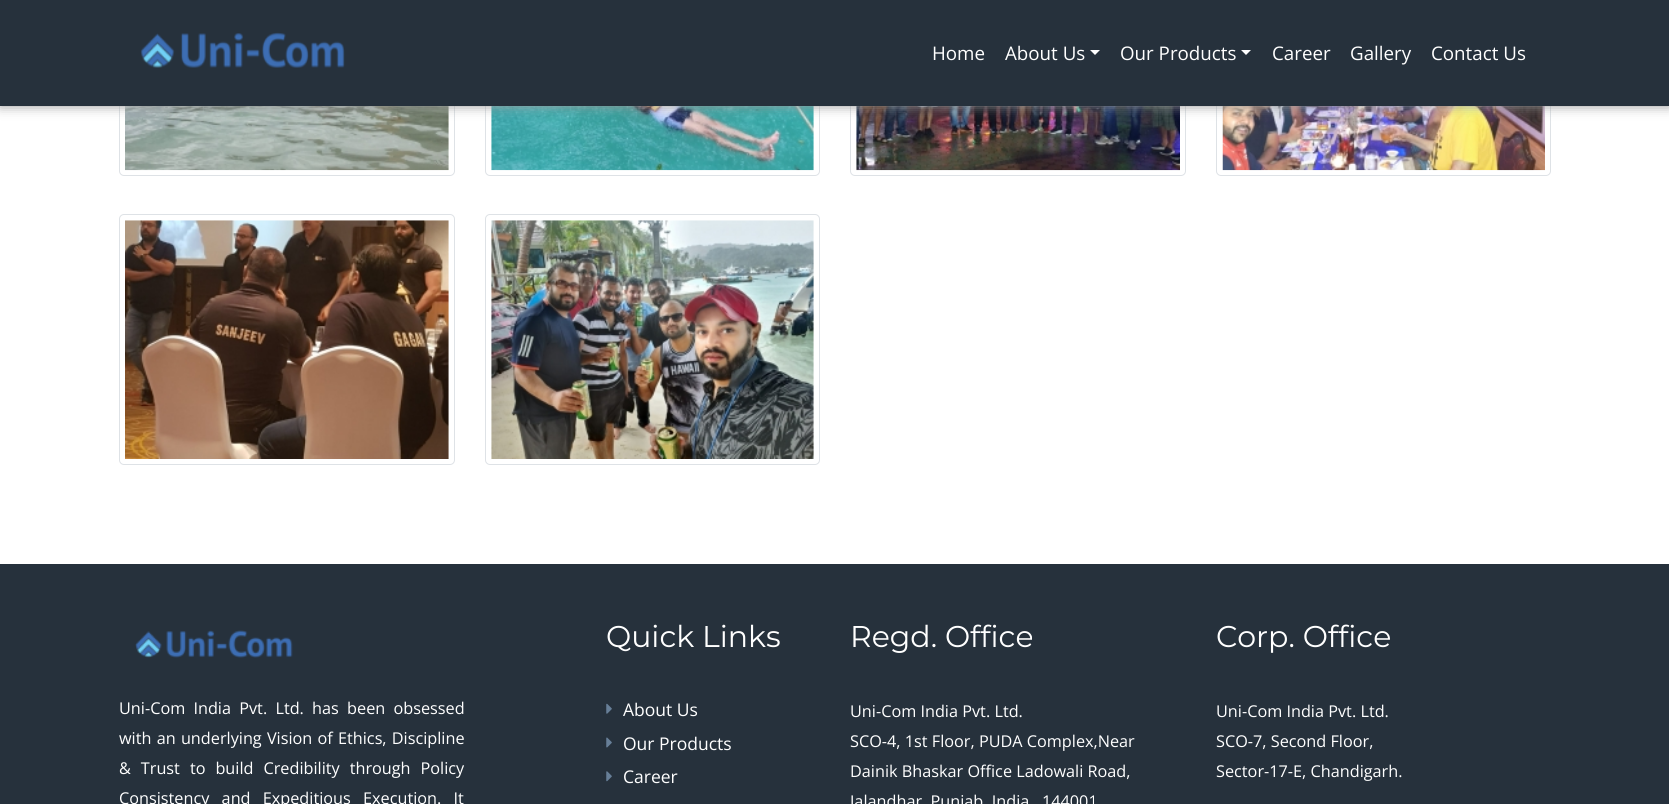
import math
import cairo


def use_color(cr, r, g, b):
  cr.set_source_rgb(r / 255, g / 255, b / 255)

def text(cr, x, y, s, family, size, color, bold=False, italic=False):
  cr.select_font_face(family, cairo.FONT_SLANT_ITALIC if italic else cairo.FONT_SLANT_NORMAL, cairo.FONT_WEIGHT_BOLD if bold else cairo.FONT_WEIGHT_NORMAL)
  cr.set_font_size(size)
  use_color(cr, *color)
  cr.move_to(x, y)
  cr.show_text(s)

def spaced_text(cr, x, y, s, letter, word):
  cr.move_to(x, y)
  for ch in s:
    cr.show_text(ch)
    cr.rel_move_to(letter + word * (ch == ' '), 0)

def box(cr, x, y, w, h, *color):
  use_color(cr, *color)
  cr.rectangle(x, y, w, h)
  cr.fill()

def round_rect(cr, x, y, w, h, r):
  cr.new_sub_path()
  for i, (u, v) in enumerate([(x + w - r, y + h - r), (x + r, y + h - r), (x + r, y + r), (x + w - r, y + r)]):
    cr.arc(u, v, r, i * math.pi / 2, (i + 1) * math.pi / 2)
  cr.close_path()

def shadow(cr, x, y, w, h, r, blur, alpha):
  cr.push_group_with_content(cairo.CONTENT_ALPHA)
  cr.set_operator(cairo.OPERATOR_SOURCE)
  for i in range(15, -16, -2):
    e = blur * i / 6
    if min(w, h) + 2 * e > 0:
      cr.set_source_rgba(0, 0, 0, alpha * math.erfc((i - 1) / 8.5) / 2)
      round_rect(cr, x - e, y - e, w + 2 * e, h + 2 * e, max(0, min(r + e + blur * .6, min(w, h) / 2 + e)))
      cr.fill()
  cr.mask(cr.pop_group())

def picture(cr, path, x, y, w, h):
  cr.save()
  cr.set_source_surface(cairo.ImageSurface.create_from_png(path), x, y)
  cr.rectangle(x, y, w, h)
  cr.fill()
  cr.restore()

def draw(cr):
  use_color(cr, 255, 255, 255)
  cr.paint()
  round_rect(cr, 119.5, -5.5, 335, 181, 4.5)
  use_color(cr, 222, 226, 230)
  cr.set_line_width(1)
  cr.stroke()
  picture(cr, "img_01.png", 125, 106, 324, 65)
  round_rect(cr, 485.5, -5.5, 334, 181, 4.5)
  cr.stroke()
  picture(cr, "img_02.png", 491, 106, 323, 65)
  round_rect(cr, 850.5, -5.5, 335, 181, 4.5)
  cr.stroke()
  picture(cr, "img_03.png", 856, 106, 324, 65)
  round_rect(cr, 1216.5, -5.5, 334, 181, 4.5)
  cr.stroke()
  picture(cr, "img_04.png", 1222, 106, 323, 65)
  round_rect(cr, 119.5, 214.5, 335, 250, 4.5)
  cr.stroke()
  picture(cr, "img_05.png", 125, 220, 324, 239)
  round_rect(cr, 485.5, 214.5, 334, 250, 4.5)
  cr.stroke()
  picture(cr, "img_06.png", 491, 220, 323, 239)
  use_color(cr, 153, 153, 153)
  shadow(cr, 0, 0, 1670, 106, 0, 6, 1)
  box(cr, 0, 0, 1669, 106, 38, 49, 60)
  picture(cr, "img_07.png", 140, 32, 205, 36)
  use_color(cr, 255, 255, 255)
  cr.new_path()
  cr.move_to(1090, 50)
  cr.line_to(1100, 50)
  cr.line_to(1095, 55)
  cr.close_path()
  cr.fill()
  cr.new_path()
  cr.move_to(1241, 50)
  cr.line_to(1251, 50)
  cr.line_to(1246, 55)
  cr.close_path()
  cr.fill()
  box(cr, 0, 564, 1669, 240, 38, 49, 60)
  picture(cr, "img_08.png", 135, 630, 158, 28)
  picture(cr, "img_09.png", 606, 703, 6, 11)
  picture(cr, "img_10.png", 606, 737, 6, 11)
  picture(cr, "img_11.png", 606, 771, 6, 11)
  text(cr, 932, 60, "Home", "Open Sans", 18.75, (255, 255, 255))
  text(cr, 1005, 60, "About Us", "Open Sans", 18.75, (255, 255, 255))
  text(cr, 1120, 60, "Our Products", "Open Sans", 18.75, (255, 255, 255))
  text(cr, 1272, 60, "Career", "Open Sans", 18.75, (255, 255, 255))
  text(cr, 1350, 60, "Gallery", "Open Sans", 18.75, (255, 255, 255))
  text(cr, 1431, 60, "Contact Us", "Open Sans", 18.75, (255, 255, 255))
  cr.set_font_size(16.25)
  spaced_text(cr, 119, 714, "Uni-Com India Pvt. Ltd. has been obsessed", 0, 4)
  spaced_text(cr, 119, 744, "with an underlying Vision of Ethics, Discipline", 0, 1)
  spaced_text(cr, 119, 774, "& Trust to build Credibility through Policy", 0, 5.75)
  spaced_text(cr, 119, 804, "Consistency and Expeditious Execution. It", 0, 8)
  text(cr, 606, 647, "Quick Links", "Montserrat", 30, (255, 255, 255))
  text(cr, 623, 716, "About Us", "Open Sans", 17.5, (255, 255, 255))
  text(cr, 623, 750, "Our Products", "Open Sans", 17.5, (255, 255, 255))
  text(cr, 623, 783, "Career", "Open Sans", 17.5, (255, 255, 255))
  text(cr, 850, 647, "Regd. Office", "Montserrat", 30, (255, 255, 255))
  text(cr, 850, 717, "Uni-Com India Pvt. Ltd.", "Open Sans", 16.25, (255, 255, 255))
  text(cr, 850, 747, "SCO-4, 1st Floor, PUDA Complex,Near", "Open Sans", 16.25, (255, 255, 255))
  text(cr, 850, 777, "Dainik Bhaskar Office Ladowali Road,", "Open Sans", 16.25, (255, 255, 255))
  text(cr, 850, 807, "Jalandhar, Punjab, India , 144001", "Open Sans", 16.25, (255, 255, 255))
  text(cr, 1216, 647, "Corp. Office", "Montserrat", 30, (255, 255, 255))
  text(cr, 1216, 717, "Uni-Com India Pvt. Ltd.", "Open Sans", 16.25, (255, 255, 255))
  text(cr, 1216, 747, "SCO-7, Second Floor,", "Open Sans", 16.25, (255, 255, 255))
  text(cr, 1216, 777, "Sector-17-E, Chandigarh.", "Open Sans", 16.25, (255, 255, 255))


surface = cairo.ImageSurface(cairo.FORMAT_RGB24, 1669, 804)
cr = cairo.Context(surface)
options = cairo.FontOptions()
options.set_hint_metrics(cairo.HINT_METRICS_OFF)
options.set_hint_style(cairo.HINT_STYLE_NONE)
cr.set_font_options(options)
cr.set_miter_limit(4)
draw(cr)
surface.write_to_png("out.png")
